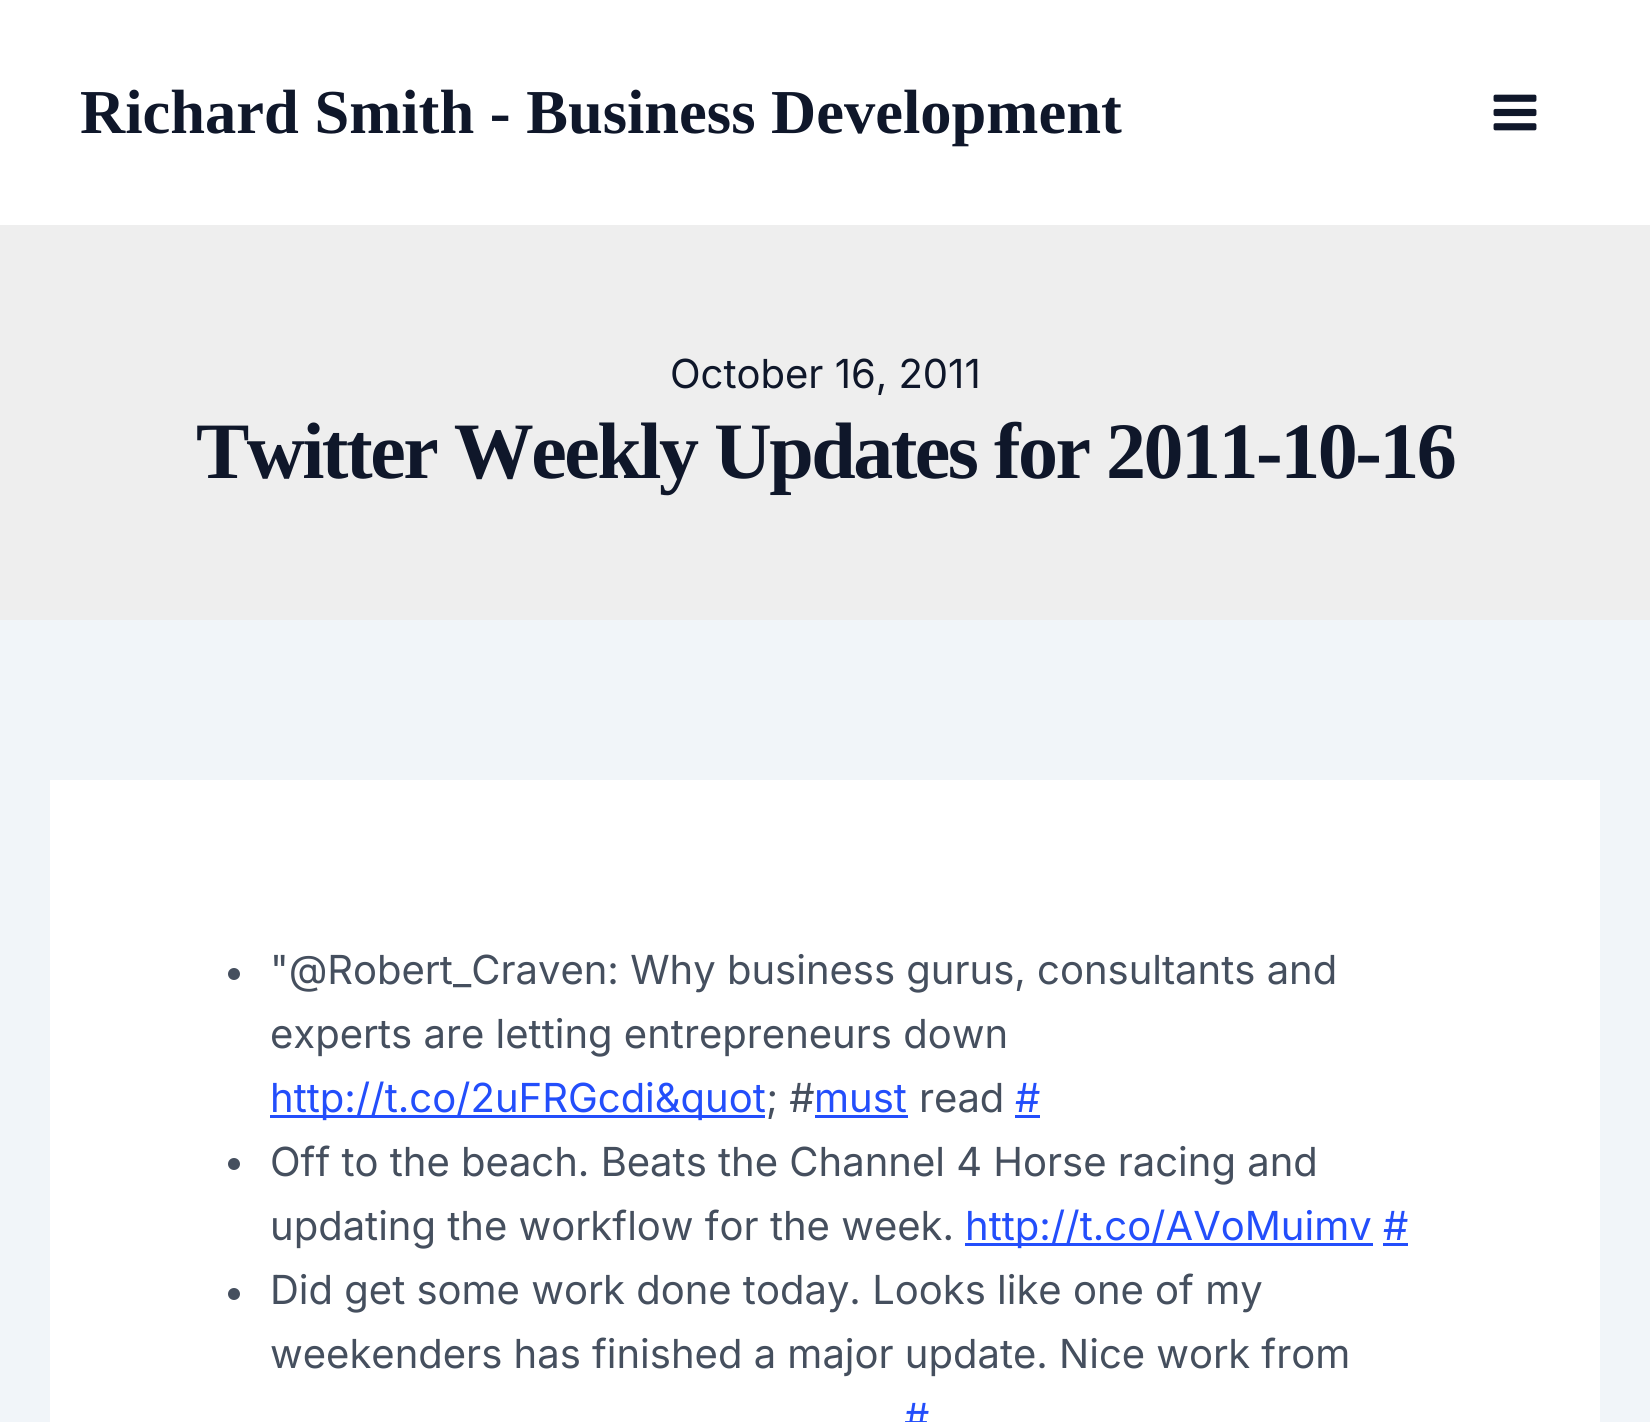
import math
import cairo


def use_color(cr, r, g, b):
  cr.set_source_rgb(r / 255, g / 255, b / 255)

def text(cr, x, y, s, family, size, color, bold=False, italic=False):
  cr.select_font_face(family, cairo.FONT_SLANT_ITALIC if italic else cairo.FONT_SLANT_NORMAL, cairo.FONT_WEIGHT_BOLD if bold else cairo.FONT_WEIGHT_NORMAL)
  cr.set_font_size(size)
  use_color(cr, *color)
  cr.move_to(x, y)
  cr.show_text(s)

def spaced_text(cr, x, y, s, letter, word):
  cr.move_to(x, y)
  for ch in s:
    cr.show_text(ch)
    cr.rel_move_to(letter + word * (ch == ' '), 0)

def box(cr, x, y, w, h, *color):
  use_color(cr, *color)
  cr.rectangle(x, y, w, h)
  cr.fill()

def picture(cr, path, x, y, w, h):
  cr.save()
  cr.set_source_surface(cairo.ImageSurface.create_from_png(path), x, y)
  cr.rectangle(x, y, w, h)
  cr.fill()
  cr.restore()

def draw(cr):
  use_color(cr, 241, 245, 249)
  cr.paint()
  box(cr, 0, 0, 1650, 225, 255, 255, 255)
  picture(cr, "img_01.png", 1493, 94, 44, 37)
  box(cr, 0, 225, 1650, 395, 238, 238, 238)
  box(cr, 50, 780, 1550, 642, 255, 255, 255)
  use_color(cr, 69, 79, 94)
  cr.arc(234, 974, 6, 0, 2 * math.pi)
  cr.fill()
  box(cr, 270, 1115, 495, 3, 35, 78, 251)
  box(cr, 815, 1115, 93, 3, 35, 78, 251)
  box(cr, 1015, 1115, 25, 3, 35, 78, 251)
  use_color(cr, 69, 79, 94)
  cr.arc(234, 1164, 6, 0, 2 * math.pi)
  cr.fill()
  box(cr, 965, 1243, 408, 3, 35, 78, 251)
  box(cr, 1383, 1243, 25, 3, 35, 78, 251)
  use_color(cr, 69, 79, 94)
  cr.arc(234, 1294, 6, 0, 2 * math.pi)
  cr.fill()
  text(cr, 80, 133, "Richard Smith - Business Development", "Liberation Serif", 62.5, (15, 23, 42), bold=True)
  text(cr, 670, 388, "October 16, 2011", "Inter", 40, (15, 23, 42))
  cr.select_font_face("Liberation Serif", cairo.FONT_SLANT_NORMAL, cairo.FONT_WEIGHT_BOLD)
  cr.set_font_size(80)
  spaced_text(cr, 196, 478, "Twitter Weekly Updates for 2011-10-16", -2.5, 0)
  text(cr, 270, 984, "\"@Robert_Craven: Why business gurus, consultants and", "Inter", 40, (69, 79, 94))
  text(cr, 270, 1048, "experts are letting entrepreneurs down", "Inter", 40, (69, 79, 94))
  text(cr, 270, 1112, "http://t.co/2uFRGcdi&quot", "Inter", 40, (35, 78, 251))
  text(cr, 766, 1112, "; #", "Inter", 40, (69, 79, 94))
  text(cr, 814, 1112, "must", "Inter", 40, (35, 78, 251))
  text(cr, 919, 1112, "read", "Inter", 40, (69, 79, 94))
  text(cr, 1015, 1112, "#", "Inter", 40, (35, 78, 251))
  text(cr, 270, 1176, "Off to the beach. Beats the Channel 4 Horse racing and", "Inter", 40, (69, 79, 94))
  text(cr, 270, 1240, "updating the workflow for the week.", "Inter", 40, (69, 79, 94))
  text(cr, 965, 1240, "http://t.co/AVoMuimv #", "Inter", 40, (35, 78, 251))
  text(cr, 270, 1304, "Did get some work done today. Looks like one of my", "Inter", 40, (69, 79, 94))
  text(cr, 270, 1368, "weekenders has finished a major update. Nice work from", "Inter", 40, (69, 79, 94))
  text(cr, 904, 1432, "#", "Inter", 40, (35, 78, 251))


surface = cairo.ImageSurface(cairo.FORMAT_RGB24, 1650, 1422)
cr = cairo.Context(surface)
options = cairo.FontOptions()
options.set_hint_metrics(cairo.HINT_METRICS_OFF)
options.set_hint_style(cairo.HINT_STYLE_NONE)
cr.set_font_options(options)
cr.set_miter_limit(4)
draw(cr)
surface.write_to_png("out.png")
